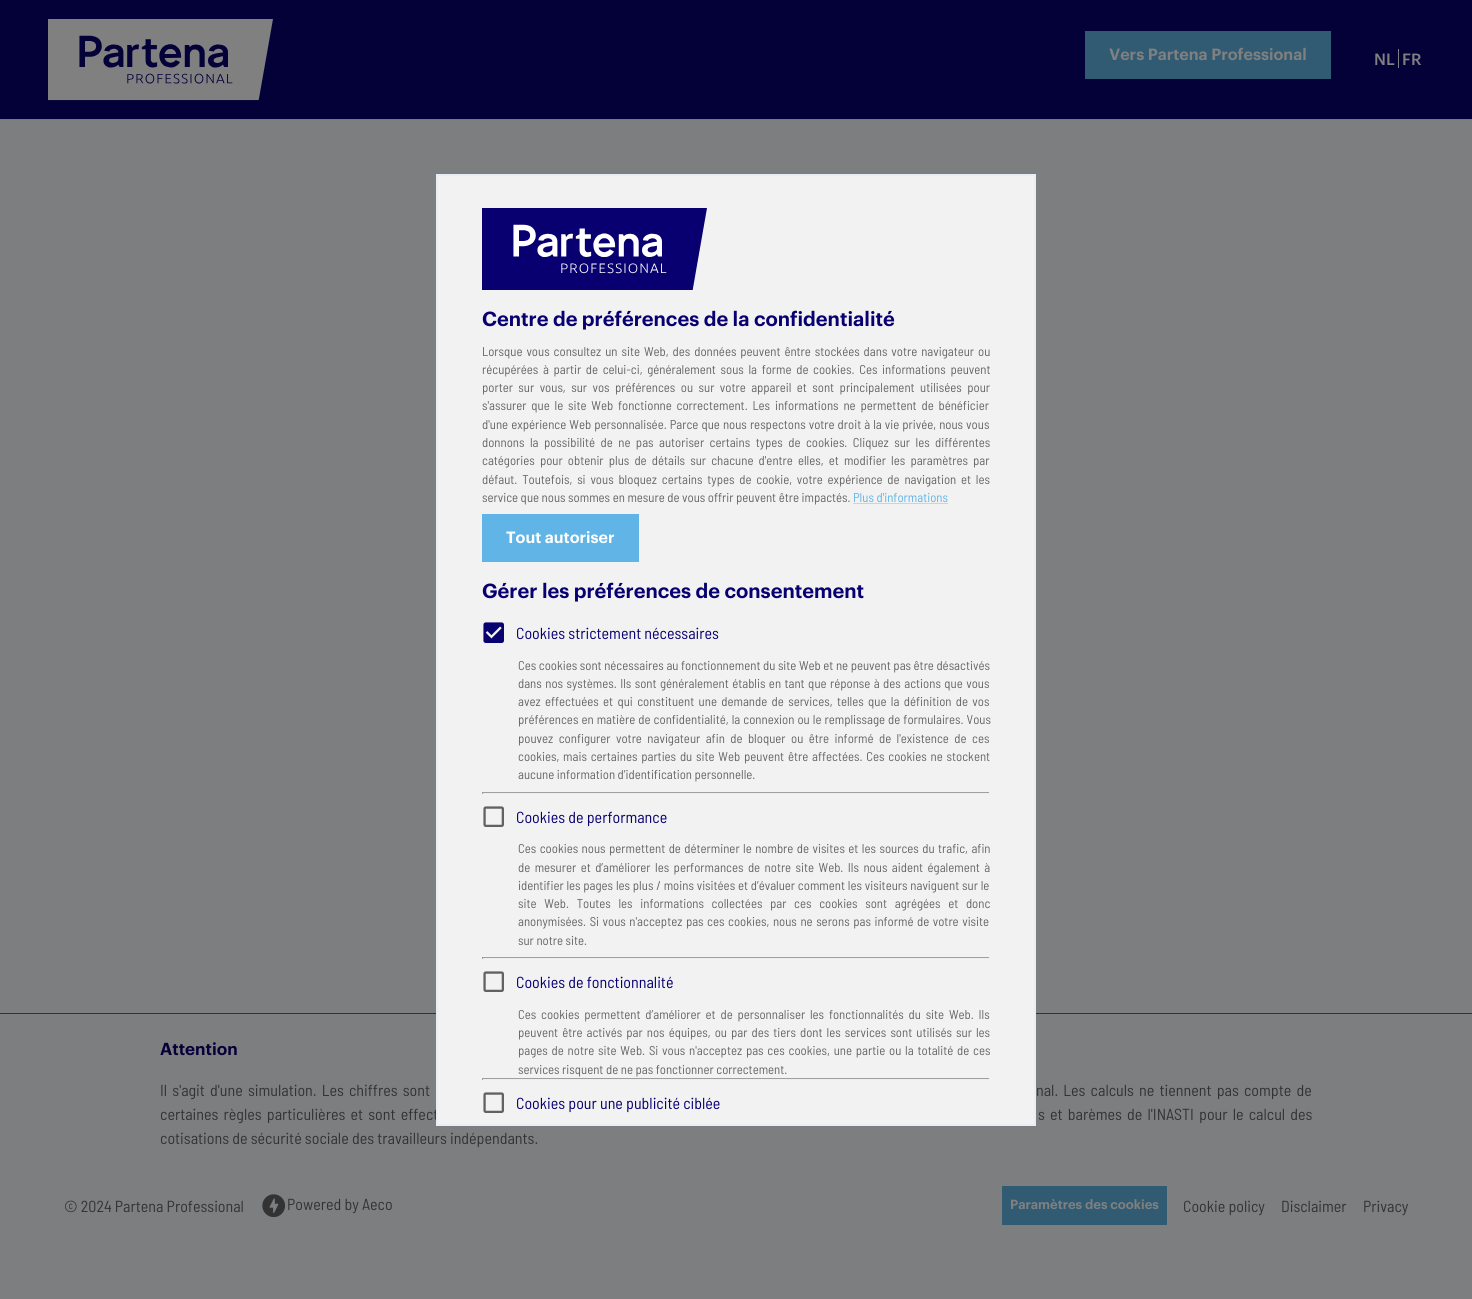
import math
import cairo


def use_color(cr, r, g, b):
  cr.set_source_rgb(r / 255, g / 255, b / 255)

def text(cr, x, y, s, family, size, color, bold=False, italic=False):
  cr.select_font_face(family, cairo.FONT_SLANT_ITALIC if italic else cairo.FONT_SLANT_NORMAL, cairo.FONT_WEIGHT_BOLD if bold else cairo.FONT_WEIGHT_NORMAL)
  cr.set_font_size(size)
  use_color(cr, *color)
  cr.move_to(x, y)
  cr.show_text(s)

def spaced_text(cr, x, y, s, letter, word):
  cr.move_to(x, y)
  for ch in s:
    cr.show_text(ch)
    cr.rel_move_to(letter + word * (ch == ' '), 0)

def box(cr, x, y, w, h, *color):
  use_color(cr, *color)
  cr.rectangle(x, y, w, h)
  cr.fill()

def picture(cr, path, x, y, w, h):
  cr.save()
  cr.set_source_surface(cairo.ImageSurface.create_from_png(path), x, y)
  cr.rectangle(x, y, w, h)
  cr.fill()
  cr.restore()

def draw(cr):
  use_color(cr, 125, 126, 127)
  cr.paint()
  box(cr, 0, 0, 1472, 119, 4, 0, 56)
  box(cr, 0, 119, 1472, 1, 116, 119, 124)
  picture(cr, "img_01.png", 48, 19, 225, 82)
  box(cr, 1085, 31, 246, 48, 48, 91, 115)
  box(cr, 1398, 49, 1, 19, 128, 128, 128)
  box(cr, 0, 1013, 1472, 1, 51, 51, 51)
  picture(cr, "img_02.png", 262, 1194, 24, 24)
  box(cr, 1002, 1186, 165, 39, 48, 91, 115)
  text(cr, 1109, 60, "Vers Partena Professional", "Graphik SemiBold", 16, (128, 128, 128))
  text(cr, 1374, 65, "NL", "Graphik Medium", 16, (128, 128, 128))
  text(cr, 1402, 65, "FR", "Graphik Medium", 16, (128, 128, 128))
  text(cr, 160, 1055, "Attention", "Graphik SemiBold", 17, (4, 0, 56))
  cr.select_font_face("Barlow Semi Condensed")
  cr.set_font_size(16)
  use_color(cr, 51, 51, 51)
  spaced_text(cr, 160, 1096, "Il s'agit d'une simulation. Les chiffres sont", 0, 2)
  spaced_text(cr, 1036, 1096, "nal. Les calculs ne tiennent pas compte de", 0, 2)
  spaced_text(cr, 160, 1120, "certaines règles particulières et sont effect", 0, 2)
  spaced_text(cr, 1038, 1120, "s et barèmes de l'INASTI pour le calcul des", 0, 2)
  text(cr, 160, 1144, "cotisations de sécurité sociale des travailleurs indépendants.", "Barlow Semi Condensed", 16, (51, 51, 51))
  text(cr, 64, 1212, "© 2024 Partena Professional", "Barlow Semi Condensed", 16, (51, 51, 51))
  text(cr, 287, 1210, "Powered by Aeco", "Barlow Semi Condensed", 16, (51, 51, 51))
  text(cr, 1010, 1209, "Paramètres des cookies", "Graphik SemiBold", 13, (128, 128, 128))
  text(cr, 1183, 1212, "Cookie policy", "Barlow Semi Condensed", 16, (51, 51, 51))
  text(cr, 1281, 1212, "Disclaimer", "Barlow Semi Condensed", 16, (51, 51, 51))
  text(cr, 1363, 1212, "Privacy", "Barlow Semi Condensed", 16, (51, 51, 51))
  cr.rectangle(436.5, 174.5, 599, 951)
  use_color(cr, 231, 238, 248)
  cr.set_line_width(1)
  cr.stroke()
  use_color(cr, 242, 242, 242)
  cr.rectangle(437.5, 175.5, 597, 949)
  cr.fill_preserve()
  use_color(cr, 231, 238, 248)
  cr.stroke()
  picture(cr, "img_03.png", 482, 208, 225, 82)
  text(cr, 482, 326, "Centre de préférences de la confidentialité", "Graphik SemiBold", 20, (8, 0, 112))
  cr.select_font_face("Barlow Semi Condensed")
  cr.set_font_size(12.8)
  use_color(cr, 102, 102, 102)
  spaced_text(cr, 482, 356, "Lorsque vous consultez un site Web, des données peuvent êntre stockées dans votre navigateur ou", 0, 1.4)
  spaced_text(cr, 482, 374, "récupérées à partir de celui-ci, généralement sous la forme de cookies. Ces informations peuvent", 0, 2.1)
  spaced_text(cr, 482, 392, "porter sur vous, sur vos préférences ou sur votre appareil et sont principalement utilisées pour", 0, 2.9)
  spaced_text(cr, 482, 410, "s'assurer que le site Web fonctionne correctement. Les informations ne permettent de bénéficier", 0, 2.25)
  spaced_text(cr, 482, 429, "d'une expérience Web personnalisée. Parce que nous respectons votre droit à la vie privée, nous vous", 0, 0.5)
  spaced_text(cr, 482, 447, "donnons la possibilité de ne pas autoriser certains types de cookies. Cliquez sur les différentes", 0, 2.9)
  spaced_text(cr, 482, 465, "catégories pour obtenir plus de détails sur chacune d'entre elles, et modifier les paramètres par", 0, 2.6)
  spaced_text(cr, 482, 484, "défaut. Toutefois, si vous bloquez certains types de cookie, votre expérience de navigation et les", 0, 2.25)
  text(cr, 482, 502, "service que nous sommes en mesure de vous offrir peuvent être impactés.", "Barlow Semi Condensed", 12.8, (102, 102, 102))
  text(cr, 853, 502, "Plus d'informations", "Barlow Semi Condensed", 12.8, (96, 181, 230))
  box(cr, 853, 503, 95, 1, 184, 218, 237)
  box(cr, 482, 514, 157, 48, 96, 181, 230)
  text(cr, 506, 543, "Tout autoriser", "Graphik SemiBold", 16, (255, 255, 255))
  text(cr, 482, 598, "Gérer les préférences de consentement", "Graphik SemiBold", 20, (8, 0, 112))
  picture(cr, "img_04.png", 483, 622, 21, 21)
  text(cr, 516, 639, "Cookies strictement nécessaires", "Barlow Semi Condensed", 16, (8, 0, 112))
  text(cr, 518, 670, "Ces cookies sont nécessaires au fonctionnement du site Web et ne peuvent pas être désactivés", "Barlow Semi Condensed", 12.8, (102, 102, 102))
  spaced_text(cr, 518, 688, "dans nos systèmes. Ils sont généralement établis en tant que réponse à des actions que vous", 0, 0.9)
  spaced_text(cr, 518, 706, "avez effectuées et qui constituent une demande de services, telles que la définition de vos", 0, 1.8)
  spaced_text(cr, 518, 724, "préférences en matière de confidentialité, la connexion ou le remplissage de formulaires. Vous", 0, 0.5)
  spaced_text(cr, 518, 743, "pouvez configurer votre navigateur afin de bloquer ou être informé de l'existence de ces", 0, 2.9)
  spaced_text(cr, 518, 761, "cookies, mais certaines parties du site Web peuvent être affectées. Ces cookies ne stockent", 0, 1.25)
  text(cr, 518, 779, "aucune information d’identification personnelle.", "Barlow Semi Condensed", 12.8, (102, 102, 102))
  box(cr, 482, 792, 508, 1, 159, 159, 159)
  box(cr, 989, 792, 1, 2, 238, 238, 238)
  box(cr, 482, 793, 508, 1, 238, 238, 238)
  box(cr, 482, 792, 1, 2, 159, 159, 159)
  picture(cr, "img_05.png", 483, 806, 21, 21)
  text(cr, 516, 823, "Cookies de performance", "Barlow Semi Condensed", 16, (8, 0, 112))
  cr.set_font_size(12.8)
  use_color(cr, 102, 102, 102)
  spaced_text(cr, 518, 853, "Ces cookies nous permettent de déterminer le nombre de visites et les sources du trafic, afin", 0, 0.9)
  spaced_text(cr, 518, 872, "de mesurer et d’améliorer les performances de notre site Web. Ils nous aident également à", 0, 1.9)
  spaced_text(cr, 518, 890, "identifier les pages les plus / moins visitées et d’évaluer comment les visiteurs naviguent sur le", 0, 0.25)
  spaced_text(cr, 518, 908, "site Web. Toutes les informations collectées par ces cookies sont agrégées et donc", 0, 5.1)
  spaced_text(cr, 518, 926, "anonymisées. Si vous n'acceptez pas ces cookies, nous ne serons pas informé de votre visite", 0, 1)
  text(cr, 518, 945, "sur notre site.", "Barlow Semi Condensed", 12.8, (102, 102, 102))
  box(cr, 482, 957, 508, 1, 159, 159, 159)
  box(cr, 989, 957, 1, 2, 238, 238, 238)
  box(cr, 482, 958, 508, 1, 238, 238, 238)
  box(cr, 482, 957, 1, 2, 159, 159, 159)
  picture(cr, "img_05.png", 483, 971, 21, 21)
  text(cr, 516, 988, "Cookies de fonctionnalité", "Barlow Semi Condensed", 16, (8, 0, 112))
  cr.set_font_size(12.8)
  use_color(cr, 102, 102, 102)
  spaced_text(cr, 518, 1019, "Ces cookies permettent d’améliorer et de personnaliser les fonctionnalités du site Web. Ils", 0, 2.25)
  spaced_text(cr, 518, 1037, "peuvent être activés par nos équipes, ou par des tiers dont les services sont utilisés sur les", 0, 1.5)
  spaced_text(cr, 518, 1055, "pages de notre site Web. Si vous n'acceptez pas ces cookies, une partie ou la totalité de ces", 0, 1.25)
  text(cr, 518, 1074, "services risquent de ne pas fonctionner correctement.", "Barlow Semi Condensed", 12.8, (102, 102, 102))
  box(cr, 482, 1078, 508, 1, 159, 159, 159)
  box(cr, 989, 1078, 1, 2, 238, 238, 238)
  box(cr, 482, 1079, 508, 1, 238, 238, 238)
  box(cr, 482, 1078, 1, 2, 159, 159, 159)
  picture(cr, "img_05.png", 483, 1092, 21, 21)
  text(cr, 516, 1109, "Cookies pour une publicité ciblée", "Barlow Semi Condensed", 16, (8, 0, 112))


surface = cairo.ImageSurface(cairo.FORMAT_RGB24, 1472, 1299)
cr = cairo.Context(surface)
options = cairo.FontOptions()
options.set_hint_metrics(cairo.HINT_METRICS_OFF)
options.set_hint_style(cairo.HINT_STYLE_NONE)
cr.set_font_options(options)
cr.set_miter_limit(4)
draw(cr)
surface.write_to_png("out.png")
